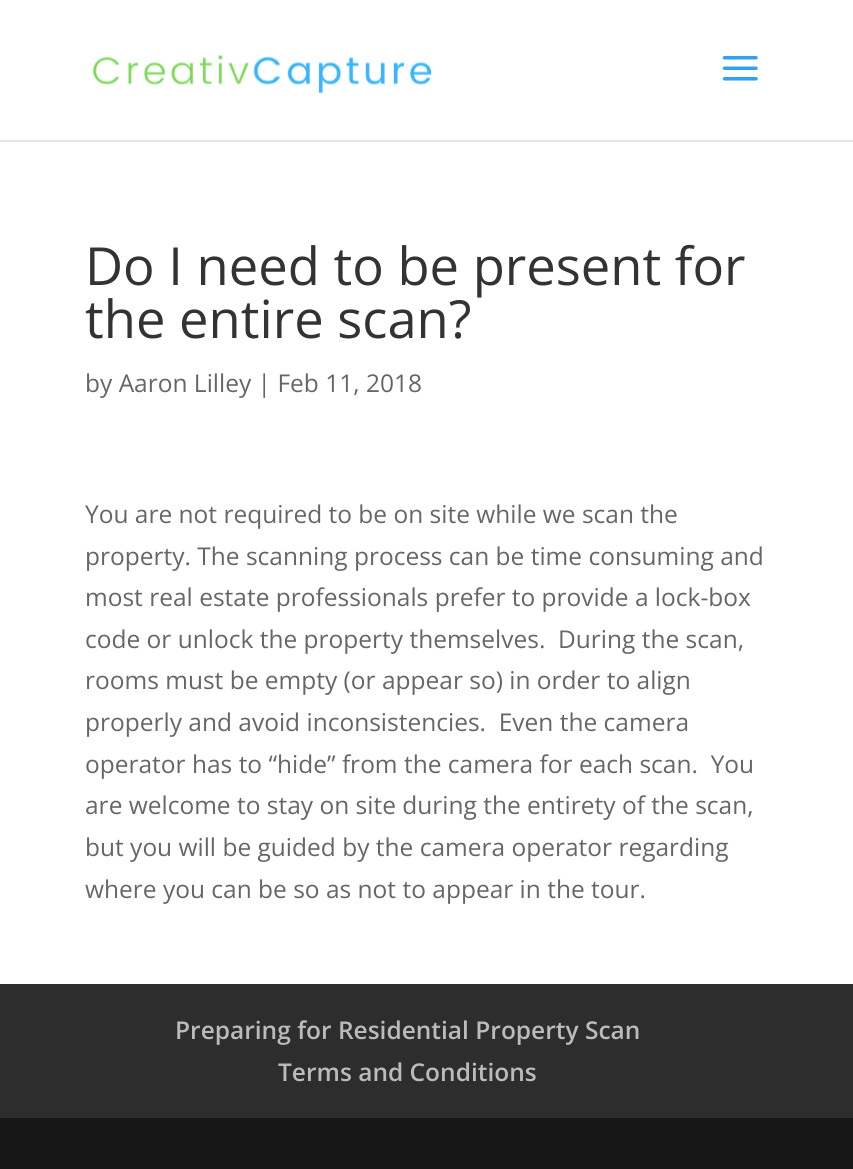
import math
import cairo


def use_color(cr, r, g, b):
  cr.set_source_rgb(r / 255, g / 255, b / 255)

def text(cr, x, y, s, family, size, color, bold=False, italic=False):
  cr.select_font_face(family, cairo.FONT_SLANT_ITALIC if italic else cairo.FONT_SLANT_NORMAL, cairo.FONT_WEIGHT_BOLD if bold else cairo.FONT_WEIGHT_NORMAL)
  cr.set_font_size(size)
  use_color(cr, *color)
  cr.move_to(x, y)
  cr.show_text(s)

def box(cr, x, y, w, h, *color):
  use_color(cr, *color)
  cr.rectangle(x, y, w, h)
  cr.fill()

def picture(cr, path, x, y, w, h):
  cr.save()
  cr.set_source_surface(cairo.ImageSurface.create_from_png(path), x, y)
  cr.rectangle(x, y, w, h)
  cr.fill()
  cr.restore()

def draw(cr):
  use_color(cr, 255, 255, 255)
  cr.paint()
  box(cr, 0, 140, 853, 2, 230, 230, 230)
  picture(cr, "img_01.png", 93, 55, 339, 39)
  picture(cr, "img_02.png", 722, 56, 36, 25)
  box(cr, 0, 984, 853, 134, 45, 45, 45)
  box(cr, 0, 1118, 853, 51, 23, 23, 23)
  text(cr, 85, 285, "Do I need to be present for", "Open Sans", 52.5, (51, 51, 51))
  text(cr, 85, 338, "the entire scan?", "Open Sans", 52.5, (51, 51, 51))
  text(cr, 85, 392, "by Aaron Lilley | Feb 11, 2018", "Open Sans", 24.5, (102, 102, 102))
  text(cr, 85, 523, "You are not required to be on site while we scan the", "Open Sans", 24.5, (102, 102, 102))
  text(cr, 85, 565, "property. The scanning process can be time consuming and", "Open Sans", 24.5, (102, 102, 102))
  text(cr, 85, 606, "most real estate professionals prefer to provide a lock-box", "Open Sans", 24.5, (102, 102, 102))
  text(cr, 85, 648, "code or unlock the property themselves.  During the scan,", "Open Sans", 24.5, (102, 102, 102))
  text(cr, 85, 689, "rooms must be empty (or appear so) in order to align", "Open Sans", 24.5, (102, 102, 102))
  text(cr, 85, 731, "properly and avoid inconsistencies.  Even the camera", "Open Sans", 24.5, (102, 102, 102))
  text(cr, 85, 773, "operator has to “hide” from the camera for each scan.  You", "Open Sans", 24.5, (102, 102, 102))
  text(cr, 85, 814, "are welcome to stay on site during the entirety of the scan,", "Open Sans", 24.5, (102, 102, 102))
  text(cr, 85, 856, "but you will be guided by the camera operator regarding", "Open Sans", 24.5, (102, 102, 102))
  text(cr, 85, 898, "where you can be so as not to appear in the tour.", "Open Sans", 24.5, (102, 102, 102))
  text(cr, 175, 1039, "Preparing for Residential Property Scan", "Open Sans SemiBold", 24.5, (187, 187, 187))
  text(cr, 278, 1081, "Terms and Conditions", "Open Sans SemiBold", 24.5, (187, 187, 187))


surface = cairo.ImageSurface(cairo.FORMAT_RGB24, 853, 1169)
cr = cairo.Context(surface)
options = cairo.FontOptions()
options.set_hint_metrics(cairo.HINT_METRICS_OFF)
options.set_hint_style(cairo.HINT_STYLE_NONE)
cr.set_font_options(options)
cr.set_miter_limit(4)
draw(cr)
surface.write_to_png("out.png")
